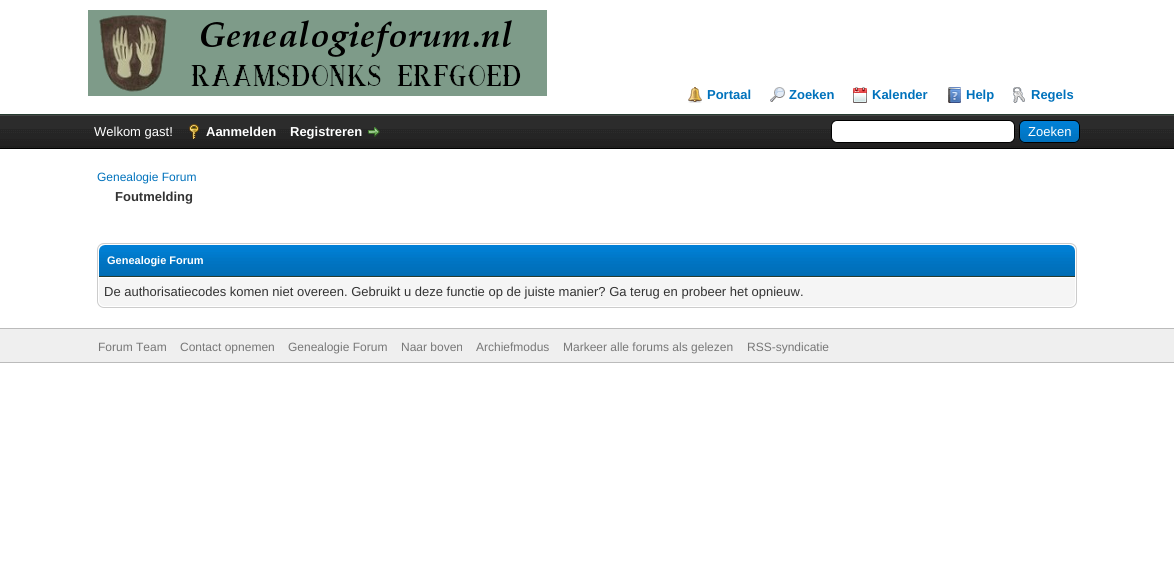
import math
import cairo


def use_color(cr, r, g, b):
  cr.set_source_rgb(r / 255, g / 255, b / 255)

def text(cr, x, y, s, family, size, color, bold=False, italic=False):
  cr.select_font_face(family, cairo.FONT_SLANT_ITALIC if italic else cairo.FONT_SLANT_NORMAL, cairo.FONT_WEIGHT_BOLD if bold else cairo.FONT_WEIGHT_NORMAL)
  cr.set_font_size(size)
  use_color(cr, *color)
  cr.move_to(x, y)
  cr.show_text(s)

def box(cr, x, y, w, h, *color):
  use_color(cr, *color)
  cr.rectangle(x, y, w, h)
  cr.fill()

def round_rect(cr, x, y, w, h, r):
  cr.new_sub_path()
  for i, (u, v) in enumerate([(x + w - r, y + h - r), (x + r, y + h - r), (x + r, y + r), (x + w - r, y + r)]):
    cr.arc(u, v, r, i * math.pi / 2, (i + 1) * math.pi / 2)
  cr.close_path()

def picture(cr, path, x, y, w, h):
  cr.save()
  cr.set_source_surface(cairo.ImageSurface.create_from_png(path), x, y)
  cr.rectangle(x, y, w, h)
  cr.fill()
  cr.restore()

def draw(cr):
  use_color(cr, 255, 255, 255)
  cr.paint()
  box(cr, 0, 114, 1174, 1, 38, 60, 48)
  picture(cr, "img_01.png", 88, 10, 459, 86)
  picture(cr, "img_02.png", 688, 87, 14, 16)
  picture(cr, "img_03.png", 770, 87, 15, 15)
  picture(cr, "img_04.png", 853, 87, 14, 16)
  picture(cr, "img_05.png", 948, 87, 13, 16)
  picture(cr, "img_06.png", 1013, 87, 12, 16)
  picture(cr, "img_07.png", 0, 116, 1174, 32)
  box(cr, 0, 115, 1174, 1, 68, 68, 68)
  box(cr, 0, 148, 1174, 1, 0, 0, 0)
  picture(cr, "img_08.png", 189, 124, 10, 15)
  picture(cr, "img_09.png", 368, 127, 12, 10)
  use_color(cr, 255, 255, 255)
  round_rect(cr, 831.5, 120.5, 183, 22, 5.5)
  cr.fill_preserve()
  use_color(cr, 0, 0, 0)
  cr.set_line_width(1)
  cr.stroke()
  picture(cr, "img_10.png", 1019, 121, 61, 22)
  round_rect(cr, 1019.5, 120.5, 60, 22, 5.5)
  cr.stroke()
  round_rect(cr, 97.5, 243.5, 979, 64, 6.5)
  use_color(cr, 204, 204, 204)
  cr.stroke()
  picture(cr, "img_11.png", 99, 245, 976, 31)
  box(cr, 99, 276, 976, 1, 38, 60, 48)
  use_color(cr, 245, 245, 245)
  cr.new_path()
  cr.move_to(99, 277)
  cr.line_to(1075, 277)
  cr.line_to(1075, 300)
  cr.curve_to(1075, 303.5, 1072.5, 306, 1069, 306)
  cr.line_to(105, 306)
  cr.curve_to(101.5, 306, 99, 303.5, 99, 300)
  cr.close_path()
  cr.fill()
  box(cr, 99, 277, 976, 1, 255, 255, 255)
  box(cr, 0, 329, 1174, 33, 239, 239, 239)
  box(cr, 0, 328, 1174, 1, 187, 187, 187)
  box(cr, 0, 362, 1174, 1, 187, 187, 187)
  text(cr, 707, 99, "Portaal", "Liberation Sans", 13, (0, 114, 188), bold=True)
  text(cr, 789, 99, "Zoeken", "Liberation Sans", 13, (0, 114, 188), bold=True)
  text(cr, 872, 99, "Kalender", "Liberation Sans", 13, (0, 114, 188), bold=True)
  text(cr, 966, 99, "Help", "Liberation Sans", 13, (0, 114, 188), bold=True)
  text(cr, 1031, 99, "Regels", "Liberation Sans", 13, (0, 114, 188), bold=True)
  text(cr, 94, 136, "Welkom gast!", "Liberation Sans", 13, (255, 255, 255))
  text(cr, 206, 136, "Aanmelden", "Liberation Sans", 13, (255, 255, 255), bold=True)
  text(cr, 290, 136, "Registreren", "Liberation Sans", 13, (255, 255, 255), bold=True)
  text(cr, 1028, 136, "Zoeken", "Liberation Sans", 13, (255, 255, 255))
  text(cr, 97, 181, "Genealogie Forum", "Liberation Sans", 12, (0, 114, 188))
  text(cr, 115, 201, "Foutmelding", "Liberation Sans", 13, (51, 51, 51), bold=True)
  text(cr, 107, 264, "Genealogie Forum", "Liberation Sans", 11, (255, 255, 255), bold=True)
  text(cr, 104, 296, "De authorisatiecodes komen niet overeen. Gebruikt u deze functie op de juiste manier? Ga terug en probeer het opnieuw.", "Liberation Sans", 13, (51, 51, 51))
  text(cr, 98, 351, "Forum Team", "Liberation Sans", 12, (119, 119, 119))
  text(cr, 180, 351, "Contact opnemen", "Liberation Sans", 12, (119, 119, 119))
  text(cr, 288, 351, "Genealogie Forum", "Liberation Sans", 12, (119, 119, 119))
  text(cr, 401, 351, "Naar boven", "Liberation Sans", 12, (119, 119, 119))
  text(cr, 476, 351, "Archiefmodus", "Liberation Sans", 12, (119, 119, 119))
  text(cr, 563, 351, "Markeer alle forums als gelezen", "Liberation Sans", 12, (119, 119, 119))
  text(cr, 747, 351, "RSS-syndicatie", "Liberation Sans", 12, (119, 119, 119))


surface = cairo.ImageSurface(cairo.FORMAT_RGB24, 1174, 579)
cr = cairo.Context(surface)
options = cairo.FontOptions()
options.set_hint_metrics(cairo.HINT_METRICS_OFF)
options.set_hint_style(cairo.HINT_STYLE_NONE)
cr.set_font_options(options)
cr.set_miter_limit(4)
draw(cr)
surface.write_to_png("out.png")
